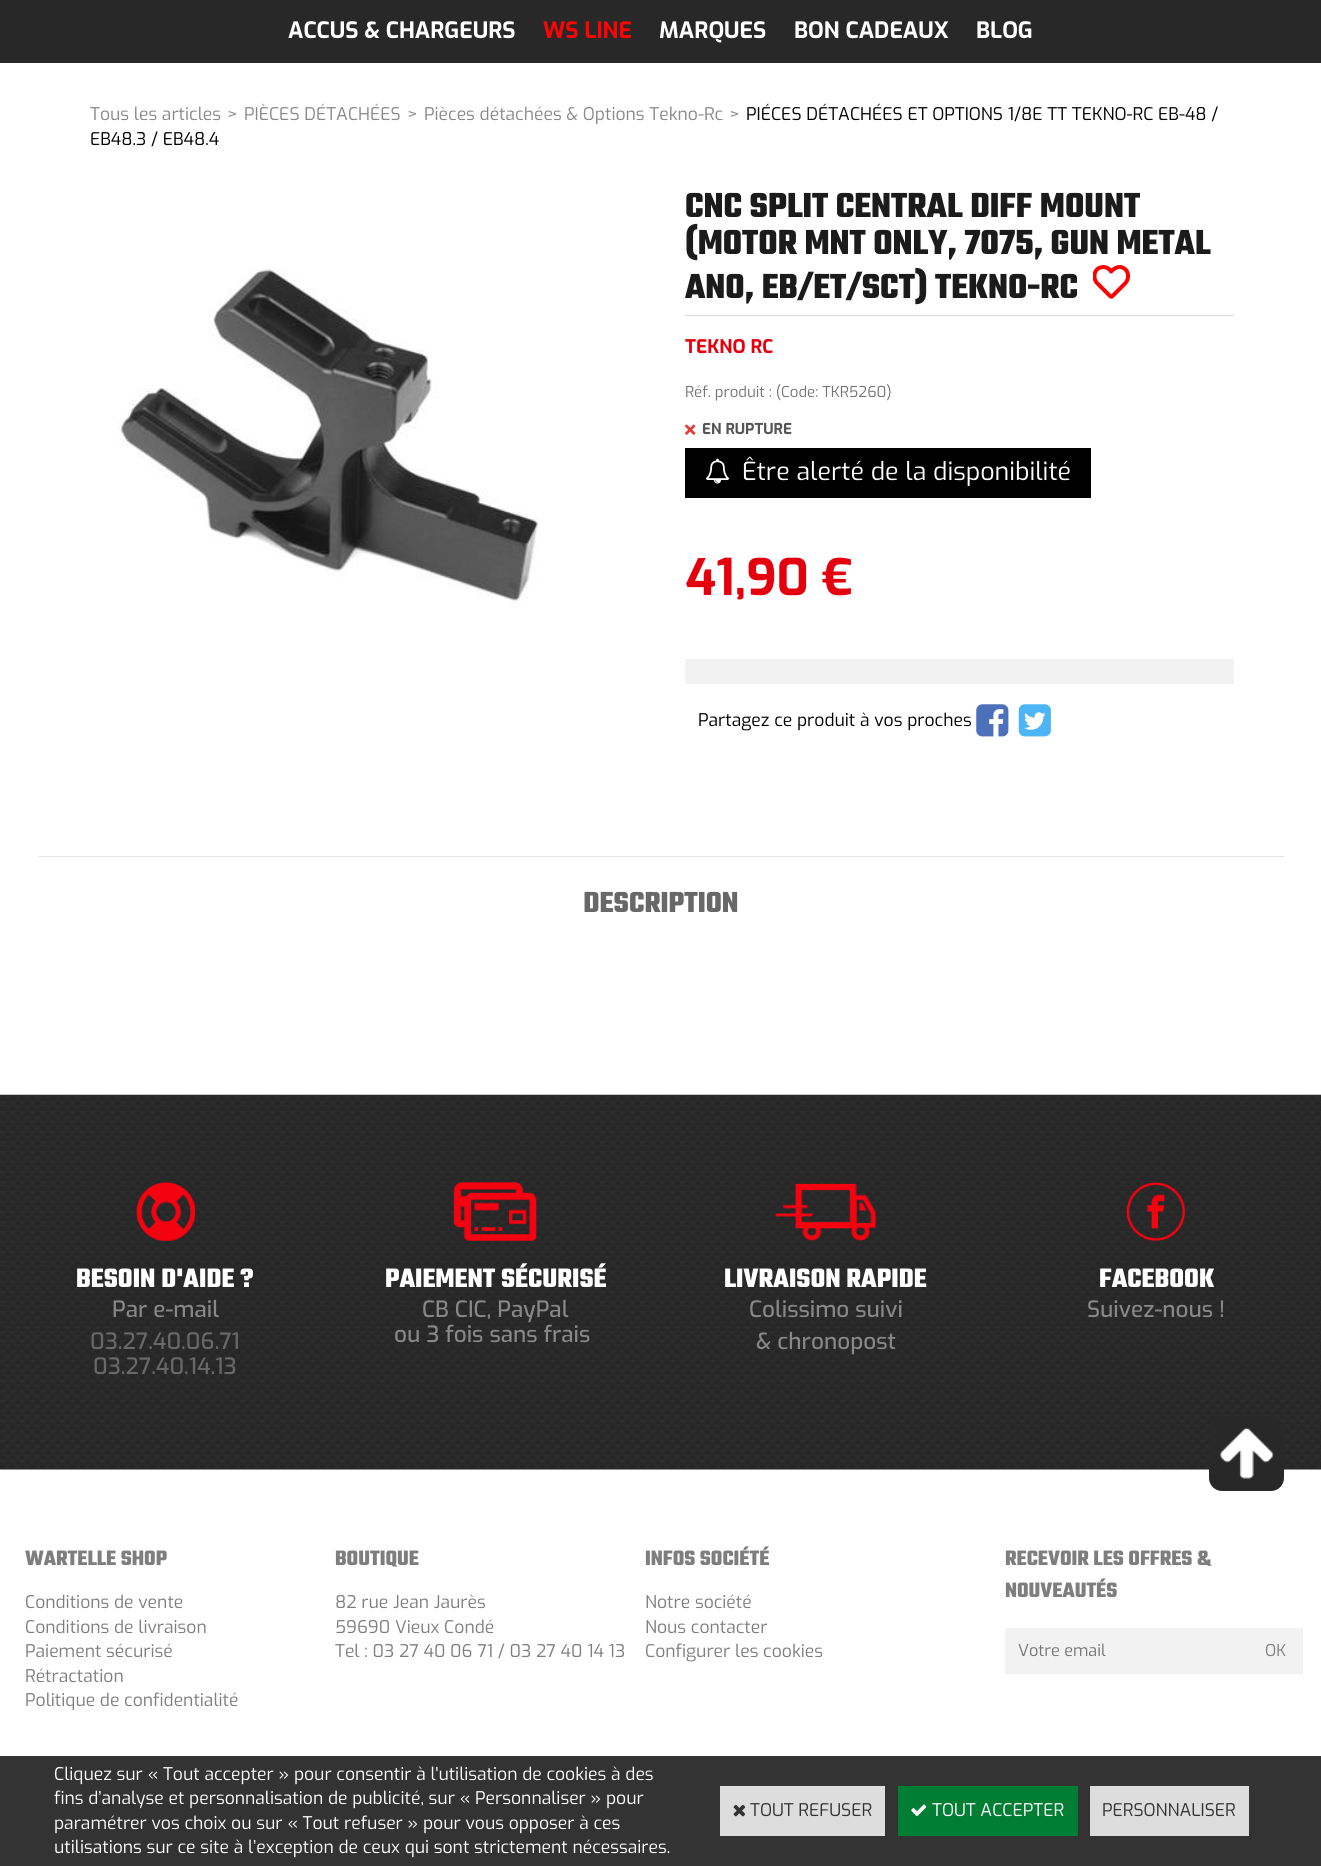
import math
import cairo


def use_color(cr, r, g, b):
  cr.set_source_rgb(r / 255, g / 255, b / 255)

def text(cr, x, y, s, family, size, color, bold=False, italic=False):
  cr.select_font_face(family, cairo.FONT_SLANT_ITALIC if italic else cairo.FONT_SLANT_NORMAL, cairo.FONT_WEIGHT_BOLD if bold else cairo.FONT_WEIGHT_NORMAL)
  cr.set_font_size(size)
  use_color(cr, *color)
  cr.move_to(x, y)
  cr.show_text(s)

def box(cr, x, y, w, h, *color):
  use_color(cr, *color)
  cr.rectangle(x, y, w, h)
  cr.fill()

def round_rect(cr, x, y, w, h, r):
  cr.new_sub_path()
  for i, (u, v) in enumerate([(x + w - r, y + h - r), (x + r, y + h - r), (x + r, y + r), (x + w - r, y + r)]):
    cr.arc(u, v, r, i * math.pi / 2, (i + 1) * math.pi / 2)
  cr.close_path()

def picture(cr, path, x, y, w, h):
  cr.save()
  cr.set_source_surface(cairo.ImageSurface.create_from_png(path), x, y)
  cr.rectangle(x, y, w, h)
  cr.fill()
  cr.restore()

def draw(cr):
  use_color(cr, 255, 255, 255)
  cr.paint()
  box(cr, 0, 0, 1321, 63, 40, 40, 40)
  picture(cr, "img_01.png", 119, 268, 419, 340)
  box(cr, 685, 315, 549, 1, 217, 217, 217)
  cr.save()
  cr.rectangle(1093, 265, 37, 34)
  cr.clip()
  cr.new_path()
  cr.move_to(1125, 269)
  cr.curve_to(1120, 265, 1115, 267.5, 1111, 271.5)
  cr.line_to(1110, 270)
  cr.curve_to(1106.5, 266.5, 1101.5, 266, 1097.5, 269)
  cr.curve_to(1093.5, 272.5, 1093.5, 279, 1097, 283)
  cr.line_to(1110, 296)
  cr.curve_to(1110.5, 297, 1112, 297, 1112.5, 296)
  cr.line_to(1125.5, 283)
  cr.curve_to(1129, 279, 1129, 272.5, 1125, 269)
  cr.close_path()
  use_color(cr, 255, 0, 0)
  cr.set_line_width(4)
  cr.set_line_cap(cairo.LINE_CAP_ROUND)
  cr.set_line_join(cairo.LINE_JOIN_ROUND)
  cr.stroke()
  cr.restore()
  picture(cr, "img_02.png", 685, 424, 11, 11)
  box(cr, 685, 448, 406, 50, 0, 0, 0)
  picture(cr, "img_03.png", 705, 458, 25, 26)
  box(cr, 685, 659, 549, 25, 242, 242, 242)
  picture(cr, "img_04.png", 976, 704, 33, 33)
  picture(cr, "img_05.png", 1018, 704, 33, 33)
  box(cr, 38, 856, 1246, 1, 229, 229, 229)
  picture(cr, "img_06.png", 0, 1094, 1321, 376)
  picture(cr, "img_07.png", 136, 1182, 59, 59)
  picture(cr, "img_08.png", 453, 1182, 84, 59)
  picture(cr, "img_09.png", 775, 1183, 102, 58)
  picture(cr, "img_10.png", 1126, 1182, 59, 59)
  box(cr, 1005, 1628, 298, 46, 242, 242, 242)
  use_color(cr, 40, 40, 40)
  round_rect(cr, 1209, 1416, 75, 75, 13)
  cr.fill()
  picture(cr, "img_11.png", 1219, 1428, 55, 51)
  box(cr, 0, 1756, 1321, 110, 51, 51, 51)
  box(cr, 720, 1786, 165, 50, 221, 221, 221)
  picture(cr, "img_12.png", 733, 1804, 13, 13)
  box(cr, 898, 1786, 180, 50, 0, 126, 51)
  picture(cr, "img_13.png", 911, 1804, 16, 13)
  box(cr, 1090, 1786, 159, 50, 221, 221, 221)
  text(cr, 288, 38, "ACCUS & CHARGEURS", "Exo", 22.5, (255, 255, 255), bold=True)
  text(cr, 543, 38, "WS LINE", "Exo", 22.5, (255, 2, 2), bold=True)
  text(cr, 659, 38, "MARQUES", "Exo", 22.5, (255, 255, 255), bold=True)
  text(cr, 794, 38, "BON CADEAUX", "Exo", 22.5, (255, 255, 255), bold=True)
  text(cr, 976, 38, "BLOG", "Exo", 22.5, (255, 255, 255), bold=True)
  text(cr, 90, 120, "Tous les articles", "Exo", 17.5, (136, 136, 136))
  text(cr, 227, 120, ">", "Exo", 17.5, (136, 136, 136))
  text(cr, 244, 120, "PIÈCES DÉTACHÉES", "Exo", 17.5, (136, 136, 136))
  text(cr, 407, 120, ">", "Exo", 17.5, (136, 136, 136))
  text(cr, 424, 120, "Pièces détachées & Options Tekno-Rc", "Exo", 17.5, (136, 136, 136))
  text(cr, 729, 120, ">", "Exo", 17.5, (136, 136, 136))
  text(cr, 746, 120, "PIÉCES DÉTACHÉES ET OPTIONS 1/8E TT TEKNO-RC EB-48 /", "Exo", 17.5, (0, 0, 0))
  text(cr, 90, 145, "EB48.3 / EB48.4", "Exo", 17.5, (0, 0, 0))
  text(cr, 685, 217, "CNC SPLIT CENTRAL DIFF MOUNT", "Teko", 37.5, (27, 27, 27), bold=True)
  text(cr, 685, 254, "(MOTOR MNT ONLY, 7075, GUN METAL", "Teko", 37.5, (27, 27, 27), bold=True)
  text(cr, 685, 298, "ANO, EB/ET/SCT) TEKNO-RC", "Teko", 37.5, (27, 27, 27), bold=True)
  text(cr, 685, 353, "TEKNO RC", "Exo", 18.75, (228, 0, 13), bold=True)
  text(cr, 685, 397, "Réf. produit : (Code: TKR5260)", "Exo", 15, (117, 117, 117))
  text(cr, 702, 434, "EN RUPTURE", "Exo", 15, (85, 85, 85), bold=True)
  text(cr, 742, 480, "Être alerté de la disponibilité", "Exo", 25, (255, 255, 255))
  text(cr, 685, 595, "41,90 €", "Exo", 50, (228, 0, 13), bold=True)
  text(cr, 698, 726, "Partagez ce produit à vos proches", "Exo", 17.5, (0, 0, 0))
  text(cr, 583, 912, "DESCRIPTION", "Teko", 31.25, (104, 104, 104), bold=True)
  text(cr, 76, 1287, "BESOIN D'AIDE ?", "Teko", 28.75, (255, 255, 255), bold=True)
  text(cr, 112, 1317, "Par e-mail", "Exo Medium", 22.5, (136, 136, 136))
  text(cr, 90, 1349, "03.27.40.06.71", "Exo Medium", 22.5, (104, 104, 104))
  text(cr, 93, 1374, "03.27.40.14.13", "Exo Medium", 22.5, (104, 104, 104))
  text(cr, 385, 1287, "PAIEMENT SÉCURISÉ", "Teko", 28.75, (255, 255, 255), bold=True)
  text(cr, 422, 1317, "CB CIC, PayPal", "Exo Medium", 22.5, (136, 136, 136))
  text(cr, 394, 1342, "ou 3 fois sans frais", "Exo Medium", 22.5, (136, 136, 136))
  text(cr, 724, 1287, "LIVRAISON RAPIDE", "Teko", 28.75, (255, 255, 255), bold=True)
  text(cr, 749, 1317, "Colissimo suivi", "Exo Medium", 22.5, (136, 136, 136))
  text(cr, 756, 1349, "& chronopost", "Exo Medium", 22.5, (136, 136, 136))
  text(cr, 1099, 1287, "FACEBOOK", "Teko", 28.75, (255, 255, 255), bold=True)
  text(cr, 1087, 1317, "Suivez-nous !", "Exo Medium", 22.5, (136, 136, 136))
  text(cr, 25, 1565, "WARTELLE SHOP", "Teko", 22.5, (126, 126, 126), bold=True)
  text(cr, 25, 1608, "Conditions de vente", "Exo", 17.5, (126, 126, 126))
  text(cr, 25, 1633, "Conditions de livraison", "Exo", 17.5, (126, 126, 126))
  text(cr, 25, 1657, "Paiement sécurisé", "Exo", 17.5, (126, 126, 126))
  text(cr, 25, 1682, "Rétractation", "Exo", 17.5, (126, 126, 126))
  text(cr, 25, 1706, "Politique de confidentialité", "Exo", 17.5, (126, 126, 126))
  text(cr, 335, 1565, "BOUTIQUE", "Teko", 22.5, (126, 126, 126), bold=True)
  text(cr, 335, 1608, "82 rue Jean Jaurès", "Exo", 17.5, (126, 126, 126))
  text(cr, 335, 1633, "59690 Vieux Condé", "Exo", 17.5, (126, 126, 126))
  text(cr, 335, 1657, "Tel : 03 27 40 06 71 / 03 27 40 14 13", "Exo", 17.5, (126, 126, 126))
  text(cr, 645, 1565, "INFOS SOCIÉTÉ", "Teko", 22.5, (126, 126, 126), bold=True)
  text(cr, 645, 1608, "Notre société", "Exo", 17.5, (126, 126, 126))
  text(cr, 645, 1633, "Nous contacter", "Exo", 17.5, (126, 126, 126))
  text(cr, 645, 1657, "Configurer les cookies", "Exo", 17.5, (126, 126, 126))
  text(cr, 1005, 1565, "RECEVOIR LES OFFRES &", "Teko", 22.5, (126, 126, 126), bold=True)
  text(cr, 1005, 1597, "NOUVEAUTÉS", "Teko", 22.5, (126, 126, 126), bold=True)
  text(cr, 1018, 1656, "Votre email", "Exo", 16.25, (117, 117, 117))
  text(cr, 1265, 1656, "OK", "Exo", 16.25, (126, 126, 126))
  text(cr, 54, 1780, "Cliquez sur « Tout accepter » pour consentir à l'utilisation de cookies à des", "Exo", 17.5, (255, 255, 255))
  text(cr, 54, 1804, "fins d’analyse et personnalisation de publicité, sur « Personnaliser » pour", "Exo", 17.5, (255, 255, 255))
  text(cr, 54, 1829, "paramétrer vos choix ou sur « Tout refuser » pour vous opposer à ces", "Exo", 17.5, (255, 255, 255))
  text(cr, 54, 1853, "utilisations sur ce site à l’exception de ceux qui sont strictement nécessaires.", "Exo", 17.5, (255, 255, 255))
  text(cr, 750, 1816, "TOUT REFUSER", "Exo", 17.5, (51, 51, 51))
  text(cr, 932, 1816, "TOUT ACCEPTER", "Exo", 17.5, (255, 255, 255))
  text(cr, 1102, 1816, "PERSONNALISER", "Exo", 17.5, (51, 51, 51))


surface = cairo.ImageSurface(cairo.FORMAT_RGB24, 1321, 1866)
cr = cairo.Context(surface)
options = cairo.FontOptions()
options.set_hint_metrics(cairo.HINT_METRICS_OFF)
options.set_hint_style(cairo.HINT_STYLE_NONE)
cr.set_font_options(options)
cr.set_miter_limit(4)
draw(cr)
surface.write_to_png("out.png")
